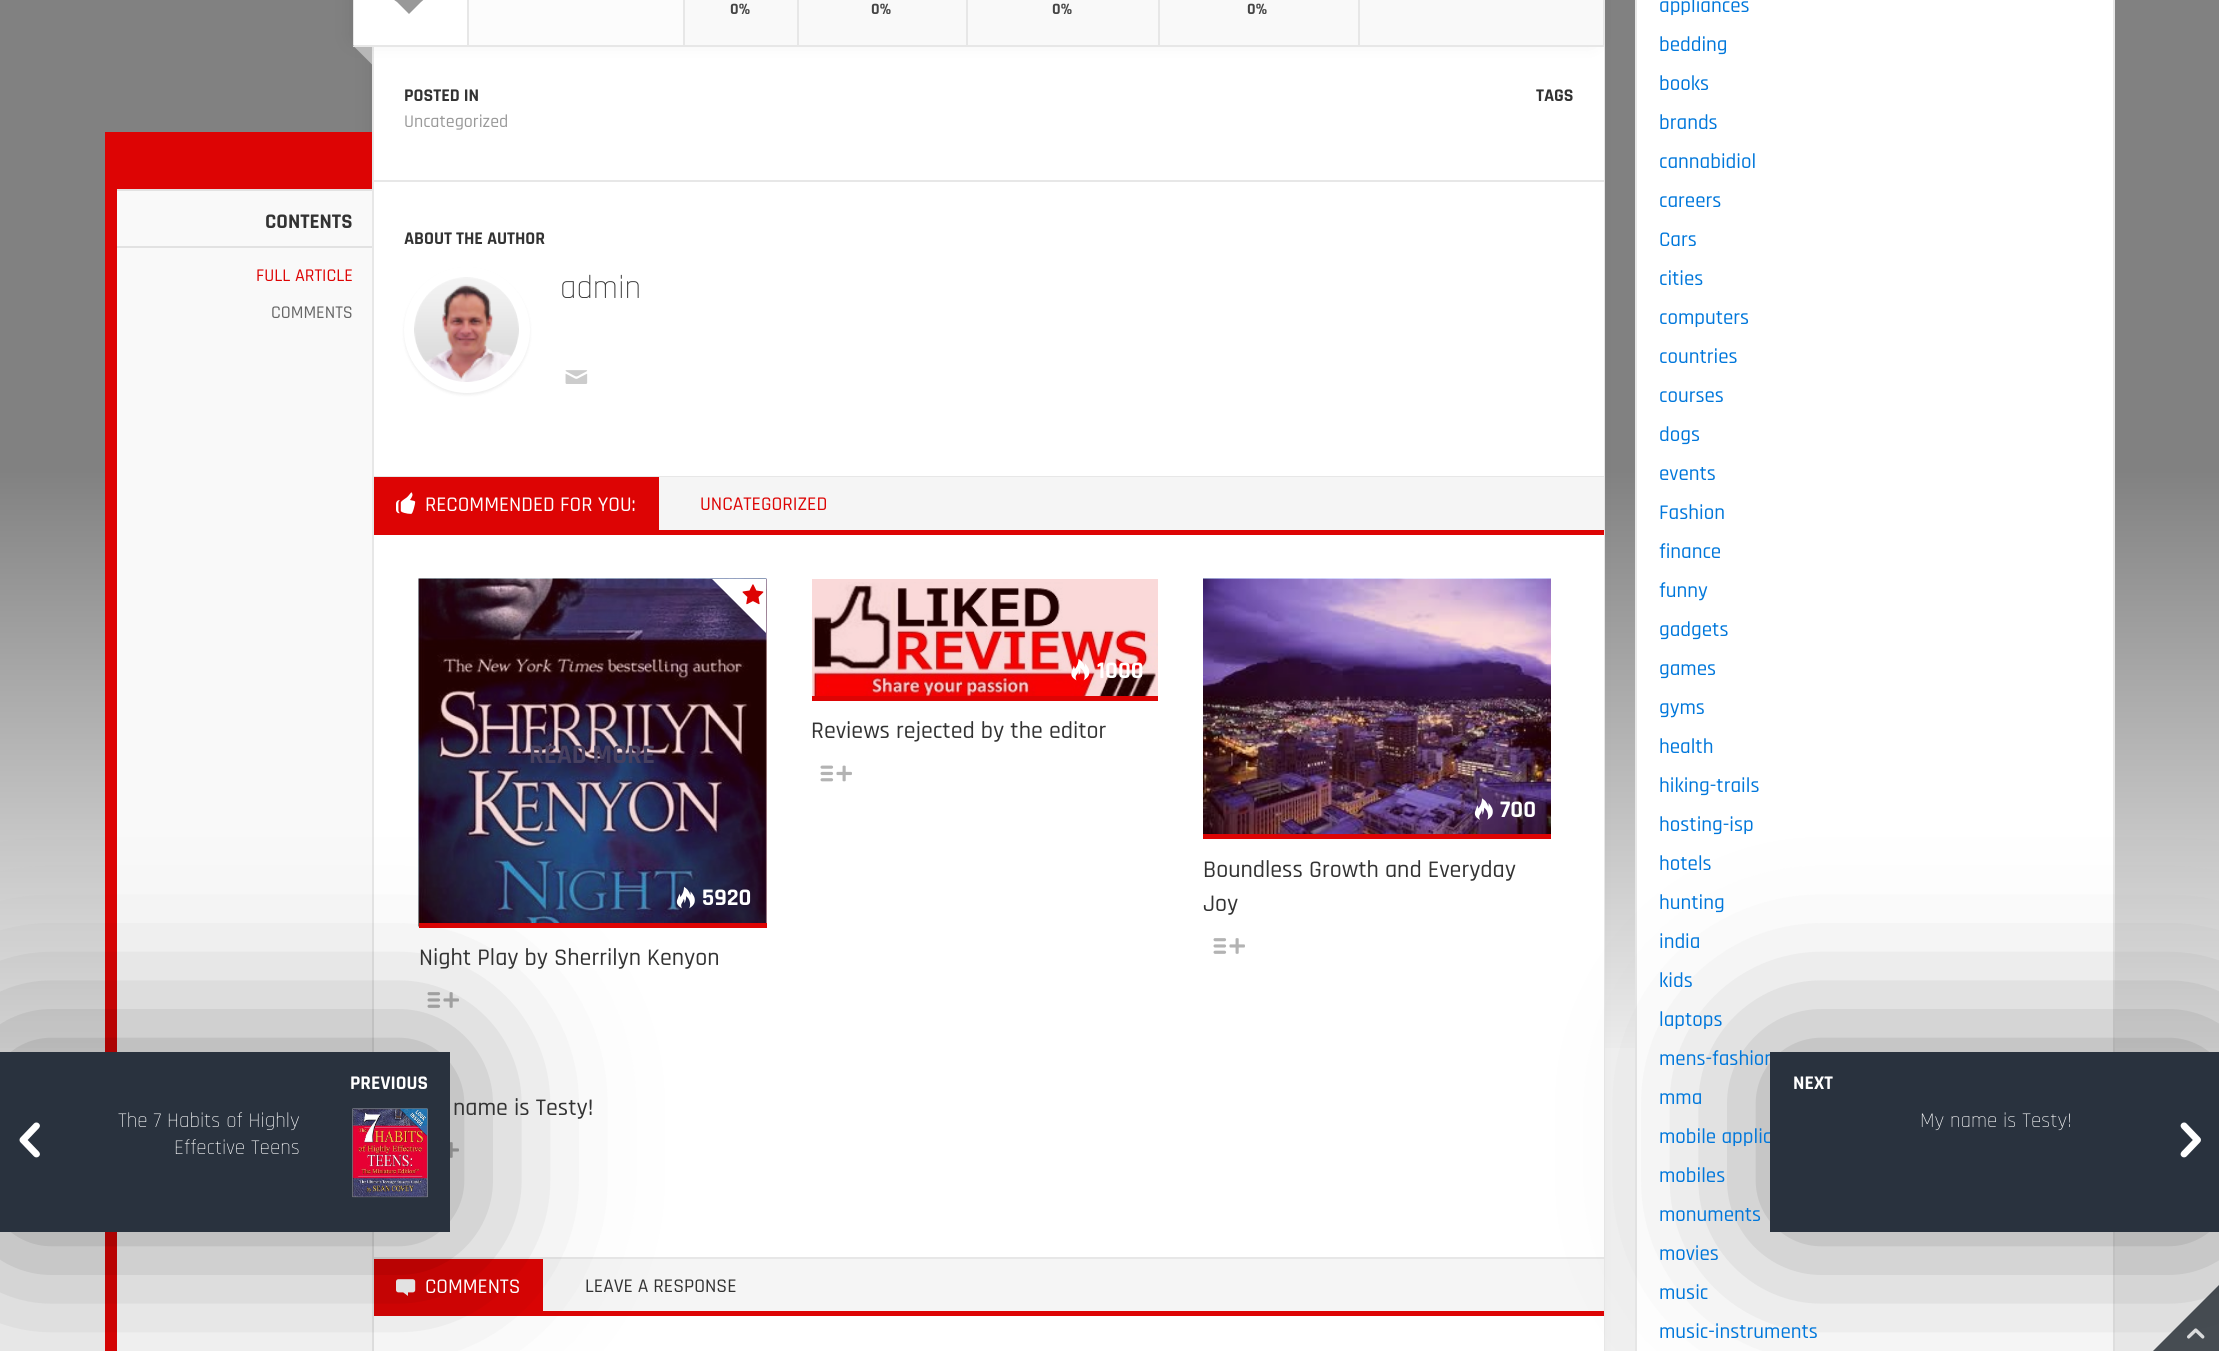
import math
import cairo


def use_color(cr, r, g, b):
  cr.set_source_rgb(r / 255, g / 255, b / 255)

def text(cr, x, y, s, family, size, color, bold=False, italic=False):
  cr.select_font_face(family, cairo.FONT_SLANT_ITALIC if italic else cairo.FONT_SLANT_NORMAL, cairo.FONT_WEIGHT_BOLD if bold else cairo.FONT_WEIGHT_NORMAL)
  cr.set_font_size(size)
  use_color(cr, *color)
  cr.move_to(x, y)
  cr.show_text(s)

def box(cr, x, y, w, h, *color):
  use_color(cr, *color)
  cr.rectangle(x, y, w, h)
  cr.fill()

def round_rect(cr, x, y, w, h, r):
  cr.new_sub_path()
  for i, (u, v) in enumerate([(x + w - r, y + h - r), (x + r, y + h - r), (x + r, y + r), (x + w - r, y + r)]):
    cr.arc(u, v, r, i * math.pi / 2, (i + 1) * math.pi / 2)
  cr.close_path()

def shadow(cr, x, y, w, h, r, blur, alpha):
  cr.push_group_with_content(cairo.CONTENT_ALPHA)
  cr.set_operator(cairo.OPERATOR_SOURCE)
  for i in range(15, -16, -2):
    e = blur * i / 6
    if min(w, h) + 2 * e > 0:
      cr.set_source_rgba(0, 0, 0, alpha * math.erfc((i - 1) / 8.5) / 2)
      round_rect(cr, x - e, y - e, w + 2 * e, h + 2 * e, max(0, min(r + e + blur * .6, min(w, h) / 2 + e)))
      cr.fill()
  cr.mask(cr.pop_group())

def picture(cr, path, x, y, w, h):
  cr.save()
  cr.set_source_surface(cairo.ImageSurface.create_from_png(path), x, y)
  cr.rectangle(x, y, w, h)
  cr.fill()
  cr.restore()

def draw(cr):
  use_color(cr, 240, 240, 240)
  cr.paint()
  gradient = cairo.LinearGradient(1125, -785, 1125, 1061)
  gradient.add_color_stop_rgba(0.68, 0.506, 0.506, 0.506, 1)
  gradient.add_color_stop_rgba(1, 0.941, 0.941, 0.941, 1)
  cr.set_source(gradient)
  cr.rectangle(0, 0, 2219, 1048)
  cr.fill()
  use_color(cr, 255, 255, 255)
  cr.rectangle(1636, -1, 478, 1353)
  cr.fill_preserve()
  use_color(cr, 231, 231, 231)
  cr.stroke()
  use_color(cr, 0, 0, 0)
  shadow(cr, 374, -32, 1218, 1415, 0, 10.5, 0.1)
  box(cr, 117, 191, 255, 1160, 249, 249, 249)
  box(cr, 105, 132, 12, 1219, 221, 4, 4)
  box(cr, 117, 132, 255, 57, 221, 4, 4)
  box(cr, 117, 189, 255, 2, 226, 226, 226)
  box(cr, 117, 246, 255, 2, 226, 226, 226)
  box(cr, 374, 47, 1230, 1304, 255, 255, 255)
  box(cr, 812, 579, 346, 3, 250, 217, 217)
  box(cr, 766, 579, 1, 344, 250, 217, 217)
  box(cr, 1604, 47, 1, 1304, 231, 231, 231)
  box(cr, 372, 47, 2, 1011, 231, 231, 231)
  use_color(cr, 0, 0, 0)
  shadow(cr, 354, -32, 1238, 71, 0, 10.5, 0.1)
  box(cr, 685, 0, 918, 45, 249, 249, 249)
  cr.rectangle(354, -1, 1250, 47)
  use_color(cr, 231, 231, 231)
  cr.stroke()
  box(cr, 354, 0, 113, 45, 255, 255, 255)
  box(cr, 467, 0, 2, 47, 231, 231, 231)
  use_color(cr, 184, 184, 184)
  cr.new_path()
  cr.move_to(372, 45)
  cr.line_to(372, 64.5)
  cr.line_to(352.5, 45)
  cr.close_path()
  cr.fill()
  box(cr, 354, 45, 18, 2, 231, 231, 231)
  use_color(cr, 153, 153, 153)
  cr.new_path()
  cr.move_to(427, -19)
  cr.curve_to(436, -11, 427, -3, 421, 2)
  cr.line_to(409, 14)
  cr.line_to(397, 2)
  cr.curve_to(394, 0, 390, -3, 388, -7)
  cr.curve_to(384, -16, 393, -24, 401, -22)
  cr.curve_to(405, -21, 407, -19, 409, -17)
  cr.curve_to(414, -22, 421, -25, 427, -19)
  cr.close_path()
  cr.fill()
  box(cr, 469, 0, 214, 45, 252, 252, 252)
  box(cr, 683, 0, 2, 47, 231, 231, 231)
  box(cr, 797, 0, 2, 47, 231, 231, 231)
  box(cr, 966, 0, 2, 47, 231, 231, 231)
  box(cr, 1158, 0, 2, 47, 231, 231, 231)
  box(cr, 1358, 0, 2, 47, 231, 231, 231)
  box(cr, 374, 180, 1230, 2, 231, 231, 231)
  use_color(cr, 0, 0, 0)
  shadow(cr, 404, 269, 126, 126, 63, 1.5, 0.07)
  use_color(cr, 255, 255, 255)
  cr.arc(467, 330, 57.5, 0, 2 * math.pi)
  cr.fill_preserve()
  cr.set_line_width(11)
  cr.stroke()
  picture(cr, "img_01.png", 414, 277, 105, 105)
  picture(cr, "img_02.png", 565, 370, 23, 14)
  box(cr, 374, 476, 1230, 1, 231, 231, 231)
  box(cr, 659, 477, 945, 53, 245, 245, 245)
  box(cr, 374, 530, 1230, 5, 221, 4, 4)
  box(cr, 374, 477, 285, 53, 221, 4, 4)
  picture(cr, "img_03.png", 396, 492, 20, 22)
  picture(cr, "img_04.png", 811, 582, 347, 118)
  picture(cr, "img_05.png", 1071, 659, 19, 22)
  box(cr, 812, 696, 346, 5, 221, 4, 4)
  picture(cr, "img_06.png", 820, 765, 32, 17)
  picture(cr, "img_07.png", 418, 578, 349, 349)
  use_color(cr, 255, 255, 255)
  cr.new_path()
  cr.move_to(766, 579)
  cr.line_to(766, 633)
  cr.line_to(712, 579)
  cr.close_path()
  cr.fill()
  picture(cr, "img_08.png", 742, 584, 22, 21)
  picture(cr, "img_09.png", 676, 887, 19, 22)
  box(cr, 419, 923, 348, 5, 221, 4, 4)
  picture(cr, "img_10.png", 427, 992, 32, 16)
  picture(cr, "img_11.png", 1203, 578, 348, 256)
  picture(cr, "img_12.png", 1474, 798, 19, 22)
  box(cr, 1203, 834, 348, 5, 221, 4, 4)
  picture(cr, "img_10.png", 1213, 938, 32, 16)
  picture(cr, "img_13.png", 450, 1142, 9, 16)
  box(cr, 374, 1257, 1230, 2, 231, 231, 231)
  box(cr, 543, 1259, 1061, 52, 245, 245, 245)
  box(cr, 374, 1311, 1230, 5, 221, 4, 4)
  box(cr, 374, 1259, 169, 52, 221, 4, 4)
  picture(cr, "img_14.png", 396, 1279, 20, 17)
  use_color(cr, 0, 0, 0)
  shadow(cr, 0, 1052, 450, 180, 0, 86, 0.45)
  box(cr, 0, 1052, 450, 180, 41, 50, 62)
  picture(cr, "img_15.png", 19, 1122, 21, 36)
  picture(cr, "img_16.png", 352, 1108, 76, 90)
  use_color(cr, 0, 0, 0)
  shadow(cr, 1770, 1052, 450, 180, 0, 86, 0.45)
  cr.set_source_rgba(0.122, 0.149, 0.18, 0.8)
  cr.new_path()
  cr.move_to(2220, 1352)
  cr.line_to(2152, 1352)
  cr.line_to(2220, 1284)
  cr.close_path()
  cr.fill()
  picture(cr, "img_18.png", 2187, 1328, 18, 11)
  text(cr, 1659, 12, "appliances", "Rajdhani Medium", 21, (0, 119, 219))
  text(cr, 1659, 51, "bedding", "Rajdhani Medium", 21, (0, 119, 219))
  text(cr, 1659, 90, "books", "Rajdhani Medium", 21, (0, 119, 219))
  text(cr, 1659, 129, "brands", "Rajdhani Medium", 21, (0, 119, 219))
  text(cr, 1659, 168, "cannabidiol", "Rajdhani Medium", 21, (0, 119, 219))
  text(cr, 1659, 207, "careers", "Rajdhani Medium", 21, (0, 119, 219))
  text(cr, 1659, 246, "Cars", "Rajdhani Medium", 21, (0, 119, 219))
  text(cr, 1659, 285, "cities", "Rajdhani Medium", 21, (0, 119, 219))
  text(cr, 1659, 324, "computers", "Rajdhani Medium", 21, (0, 119, 219))
  text(cr, 1659, 363, "countries", "Rajdhani Medium", 21, (0, 119, 219))
  text(cr, 1659, 402, "courses", "Rajdhani Medium", 21, (0, 119, 219))
  text(cr, 1659, 441, "dogs", "Rajdhani Medium", 21, (0, 119, 219))
  text(cr, 1659, 480, "events", "Rajdhani Medium", 21, (0, 119, 219))
  text(cr, 1659, 519, "Fashion", "Rajdhani Medium", 21, (0, 119, 219))
  text(cr, 1659, 558, "finance", "Rajdhani Medium", 21, (0, 119, 219))
  text(cr, 1659, 597, "funny", "Rajdhani Medium", 21, (0, 119, 219))
  text(cr, 1659, 636, "gadgets", "Rajdhani Medium", 21, (0, 119, 219))
  text(cr, 1659, 675, "games", "Rajdhani Medium", 21, (0, 119, 219))
  text(cr, 1659, 714, "gyms", "Rajdhani Medium", 21, (0, 119, 219))
  text(cr, 1659, 753, "health", "Rajdhani Medium", 21, (0, 119, 219))
  text(cr, 1659, 792, "hiking-trails", "Rajdhani Medium", 21, (0, 119, 219))
  text(cr, 1659, 831, "hosting-isp", "Rajdhani Medium", 21, (0, 119, 219))
  text(cr, 1659, 870, "hotels", "Rajdhani Medium", 21, (0, 119, 219))
  text(cr, 1659, 909, "hunting", "Rajdhani Medium", 21, (0, 119, 219))
  text(cr, 1659, 948, "india", "Rajdhani Medium", 21, (0, 119, 219))
  text(cr, 1659, 987, "kids", "Rajdhani Medium", 21, (0, 119, 219))
  text(cr, 1659, 1026, "laptops", "Rajdhani Medium", 21, (0, 119, 219))
  text(cr, 1659, 1065, "mens-fashion", "Rajdhani Medium", 21, (0, 119, 219))
  text(cr, 1659, 1104, "mma", "Rajdhani Medium", 21, (0, 119, 219))
  text(cr, 1659, 1143, "mobile applic", "Rajdhani Medium", 21, (0, 119, 219))
  text(cr, 1659, 1182, "mobiles", "Rajdhani Medium", 21, (0, 119, 219))
  text(cr, 1659, 1221, "monuments", "Rajdhani Medium", 21, (0, 119, 219))
  text(cr, 1659, 1260, "movies", "Rajdhani Medium", 21, (0, 119, 219))
  text(cr, 1659, 1299, "music", "Rajdhani Medium", 21, (0, 119, 219))
  text(cr, 1659, 1338, "music-instruments", "Rajdhani Medium", 21, (0, 119, 219))
  text(cr, 265, 228, "CONTENTS", "Rajdhani", 21, (51, 51, 51), bold=True)
  text(cr, 256, 281, "FULL ARTICLE", "Rajdhani Medium", 18, (221, 4, 4))
  text(cr, 271, 318, "COMMENTS", "Rajdhani Medium", 18, (102, 102, 102))
  text(cr, 730, 14, "0%", "Rajdhani", 16, (68, 68, 68), bold=True)
  text(cr, 871, 14, "0%", "Rajdhani", 16, (68, 68, 68), bold=True)
  text(cr, 1052, 14, "0%", "Rajdhani", 16, (68, 68, 68), bold=True)
  text(cr, 1247, 14, "0%", "Rajdhani", 16, (68, 68, 68), bold=True)
  text(cr, 404, 101, "POSTED IN", "Rajdhani", 18, (51, 51, 51), bold=True)
  text(cr, 404, 127, "Uncategorized", "Rajdhani Medium", 18, (153, 153, 153))
  text(cr, 1536, 101, "TAGS", "Rajdhani", 18, (51, 51, 51), bold=True)
  text(cr, 404, 244, "ABOUT THE AUTHOR", "Rajdhani", 18, (51, 51, 51), bold=True)
  text(cr, 560, 298, "admin", "Rajdhani Light", 33, (51, 51, 51))
  text(cr, 425, 511, "RECOMMENDED FOR YOU:", "Rajdhani Medium", 21, (255, 255, 255))
  text(cr, 700, 510, "UNCATEGORIZED", "Rajdhani Medium", 19.5, (221, 4, 4))
  text(cr, 1097, 678, "1000", "Rajdhani", 24, (255, 255, 255), bold=True)
  text(cr, 811, 738, "Reviews rejected by the editor", "Rajdhani Medium", 24, (51, 51, 51))
  text(cr, 529, 763, "READ MORE", "Rajdhani", 27, (71, 64, 95), bold=True)
  text(cr, 702, 905, "5920", "Rajdhani", 24, (255, 255, 255), bold=True)
  text(cr, 419, 965, "Night Play by Sherrilyn Kenyon", "Rajdhani Medium", 24, (51, 51, 51))
  text(cr, 1500, 817, "700", "Rajdhani", 24, (255, 255, 255), bold=True)
  text(cr, 1203, 877, "Boundless Growth and Everyday", "Rajdhani Medium", 24, (51, 51, 51))
  text(cr, 1203, 911, "Joy", "Rajdhani Medium", 24, (51, 51, 51))
  text(cr, 453, 1115, "name is Testy!", "Rajdhani Medium", 24, (51, 51, 51))
  text(cr, 425, 1293, "COMMENTS", "Rajdhani Medium", 21, (255, 255, 255))
  text(cr, 585, 1292, "LEAVE A RESPONSE", "Rajdhani Medium", 19.5, (51, 51, 51))
  text(cr, 350, 1089, "PREVIOUS", "Rajdhani", 19.5, (255, 255, 255), bold=True)
  text(cr, 118, 1127, "The 7 Habits of Highly", "Rajdhani Light", 21, (255, 255, 255))
  text(cr, 174, 1154, "Effective Teens", "Rajdhani Light", 21, (255, 255, 255))
  box(cr, 1770, 1052, 449, 180, 41, 50, 62)
  text(cr, 1793, 1089, "NEXT", "Rajdhani", 19.5, (255, 255, 255), bold=True)
  text(cr, 1920, 1127, "My name is Testy!", "Rajdhani Light", 21, (255, 255, 255))
  picture(cr, "img_17.png", 2180, 1122, 21, 36)


surface = cairo.ImageSurface(cairo.FORMAT_RGB24, 2219, 1351)
cr = cairo.Context(surface)
options = cairo.FontOptions()
options.set_hint_metrics(cairo.HINT_METRICS_OFF)
options.set_hint_style(cairo.HINT_STYLE_NONE)
cr.set_font_options(options)
cr.set_miter_limit(4)
draw(cr)
surface.write_to_png("out.png")
